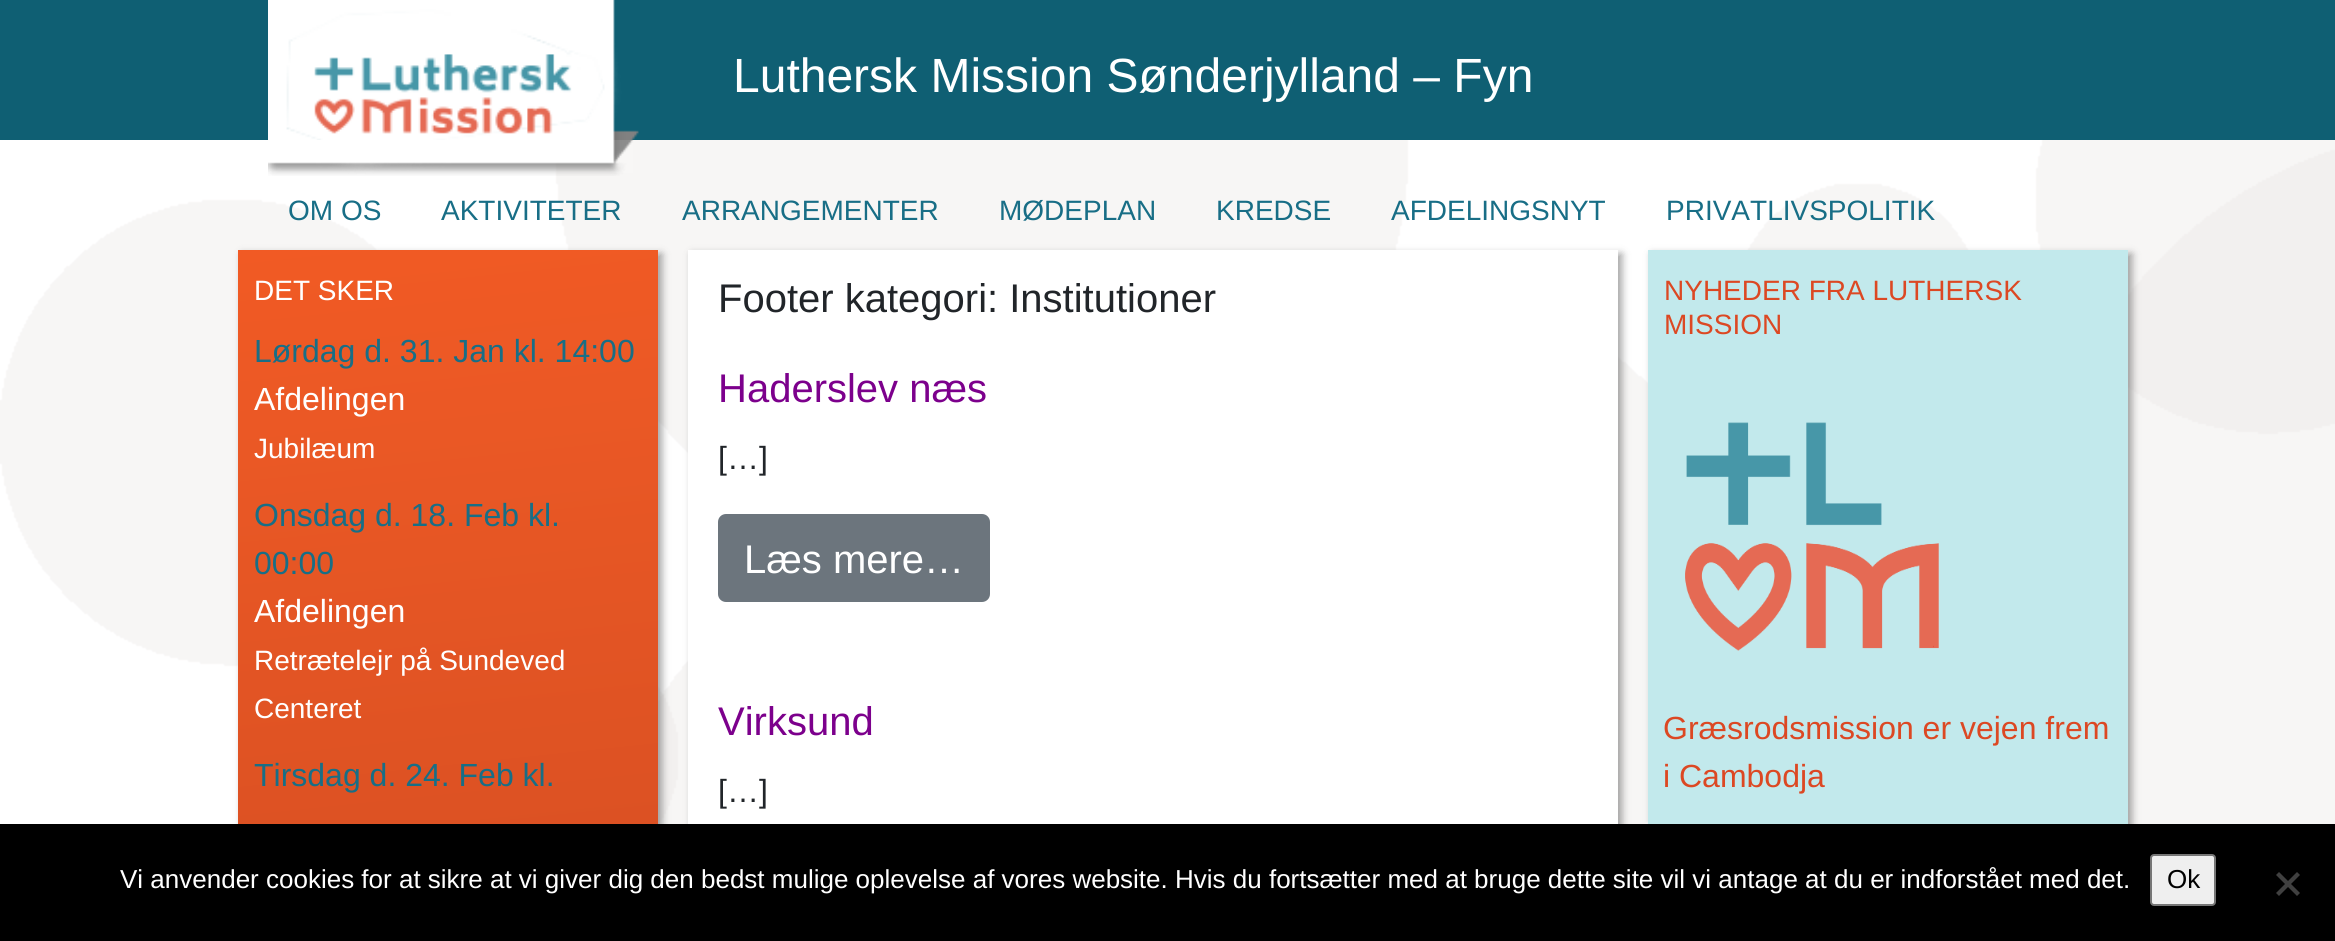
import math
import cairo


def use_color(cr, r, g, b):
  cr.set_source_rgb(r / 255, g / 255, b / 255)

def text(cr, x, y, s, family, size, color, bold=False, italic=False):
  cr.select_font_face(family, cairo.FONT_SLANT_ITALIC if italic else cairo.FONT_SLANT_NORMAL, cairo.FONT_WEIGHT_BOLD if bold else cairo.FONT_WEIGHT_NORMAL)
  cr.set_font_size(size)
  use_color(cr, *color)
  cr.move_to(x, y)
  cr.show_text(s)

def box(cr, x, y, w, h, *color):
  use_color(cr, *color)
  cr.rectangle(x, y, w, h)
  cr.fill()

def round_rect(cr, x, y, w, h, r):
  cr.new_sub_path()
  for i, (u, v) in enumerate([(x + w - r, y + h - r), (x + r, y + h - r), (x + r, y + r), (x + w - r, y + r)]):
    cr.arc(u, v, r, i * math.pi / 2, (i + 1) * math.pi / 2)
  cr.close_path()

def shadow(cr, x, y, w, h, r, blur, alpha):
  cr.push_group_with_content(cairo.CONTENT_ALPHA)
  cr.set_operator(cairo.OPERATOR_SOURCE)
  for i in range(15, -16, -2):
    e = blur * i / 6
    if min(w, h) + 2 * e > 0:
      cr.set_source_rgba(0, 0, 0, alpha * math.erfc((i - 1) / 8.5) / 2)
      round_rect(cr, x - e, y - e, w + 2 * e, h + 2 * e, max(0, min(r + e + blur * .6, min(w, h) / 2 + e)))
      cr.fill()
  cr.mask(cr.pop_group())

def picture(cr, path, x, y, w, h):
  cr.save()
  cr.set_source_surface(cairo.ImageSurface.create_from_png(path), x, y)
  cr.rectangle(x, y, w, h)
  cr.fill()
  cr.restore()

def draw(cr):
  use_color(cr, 255, 255, 255)
  cr.paint()
  picture(cr, "img_01.png", 0, 140, 2335, 684)
  box(cr, 0, 0, 2335, 140, 15, 95, 115)
  picture(cr, "img_02.png", 268, 0, 371, 176)
  cr.set_source_rgba(1, 1, 1, 0.1)
  cr.rectangle(268, 140, 365, 33)
  cr.fill()
  use_color(cr, 50, 50, 50)
  shadow(cr, 242, 254, 420, 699, 0, 4, 0.45)
  gradient = cairo.LinearGradient(373, 236, 523, 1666)
  gradient.add_color_stop_rgba(0, 0.945, 0.353, 0.141, 1)
  gradient.add_color_stop_rgba(0.14, 0.918, 0.345, 0.145, 1)
  gradient.add_color_stop_rgba(0.98, 0.753, 0.267, 0.118, 1)
  gradient.add_color_stop_rgba(0.99, 0.737, 0.243, 0.122, 1)
  cr.set_source(gradient)
  cr.rectangle(238, 250, 420, 574)
  cr.fill()
  use_color(cr, 50, 50, 50)
  shadow(cr, 692, 254, 930, 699, 0, 4, 0.45)
  box(cr, 688, 250, 930, 574, 255, 255, 255)
  use_color(cr, 108, 117, 125)
  round_rect(cr, 719, 515, 270, 86, 7)
  cr.fill_preserve()
  cr.stroke()
  use_color(cr, 50, 50, 50)
  shadow(cr, 1652, 254, 480, 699, 0, 4, 0.45)
  box(cr, 1648, 250, 480, 574, 194, 233, 236)
  picture(cr, "img_03.png", 1685, 422, 254, 229)
  box(cr, 0, 824, 2335, 117, 0, 0, 0)
  use_color(cr, 239, 239, 239)
  round_rect(cr, 2151, 855, 64, 50, 3)
  cr.fill_preserve()
  use_color(cr, 118, 118, 118)
  cr.stroke()
  use_color(cr, 64, 64, 64)
  cr.new_path()
  cr.move_to(2297, 872)
  cr.line_to(2300, 875)
  cr.line_to(2279, 896)
  cr.line_to(2276, 893)
  cr.close_path()
  cr.fill()
  cr.new_path()
  cr.move_to(2276, 875)
  cr.line_to(2279, 872)
  cr.line_to(2300, 893)
  cr.line_to(2297, 896)
  cr.close_path()
  cr.fill()
  text(cr, 733, 92, "Luthersk Mission Sønderjylland – Fyn", "Liberation Sans", 48, (255, 255, 255))
  text(cr, 288, 220, "OM OS", "Liberation Sans", 28, (24, 110, 134))
  text(cr, 441, 220, "AKTIVITETER", "Liberation Sans", 28, (24, 110, 134))
  text(cr, 682, 220, "ARRANGEMENTER", "Liberation Sans", 28, (24, 110, 134))
  text(cr, 999, 220, "MØDEPLAN", "Liberation Sans", 28, (24, 110, 134))
  text(cr, 1216, 220, "KREDSE", "Liberation Sans", 28, (24, 110, 134))
  text(cr, 1391, 220, "AFDELINGSNYT", "Liberation Sans", 28, (24, 110, 134))
  text(cr, 1666, 220, "PRIVATLIVSPOLITIK", "Liberation Sans", 28, (24, 110, 134))
  text(cr, 254, 300, "DET SKER", "Liberation Sans", 28, (255, 255, 255))
  text(cr, 254, 362, "Lørdag d. 31. Jan kl. 14:00", "Liberation Sans", 32, (24, 110, 134))
  text(cr, 254, 410, "Afdelingen", "Liberation Sans", 32, (255, 255, 255))
  text(cr, 254, 458, "Jubilæum", "Liberation Sans", 28, (255, 255, 255))
  text(cr, 254, 526, "Onsdag d. 18. Feb kl.", "Liberation Sans", 32, (24, 110, 134))
  text(cr, 254, 574, "00:00", "Liberation Sans", 32, (24, 110, 134))
  text(cr, 254, 622, "Afdelingen", "Liberation Sans", 32, (255, 255, 255))
  text(cr, 254, 670, "Retrætelejr på Sundeved", "Liberation Sans", 28, (255, 255, 255))
  text(cr, 254, 718, "Centeret", "Liberation Sans", 28, (255, 255, 255))
  text(cr, 254, 786, "Tirsdag d. 24. Feb kl.", "Liberation Sans", 32, (24, 110, 134))
  text(cr, 718, 312, "Footer kategori: Institutioner", "Liberation Sans", 40, (33, 37, 41))
  text(cr, 718, 402, "Haderslev næs", "Liberation Sans", 40, (124, 0, 140))
  text(cr, 718, 469, "[…]", "Liberation Sans", 32, (33, 37, 41))
  text(cr, 744, 573, "Læs mere…", "Liberation Sans", 40, (255, 255, 255))
  text(cr, 718, 735, "Virksund", "Liberation Sans", 40, (124, 0, 140))
  text(cr, 718, 802, "[…]", "Liberation Sans", 32, (33, 37, 41))
  text(cr, 1664, 300, "NYHEDER FRA LUTHERSK", "Liberation Sans", 28, (220, 72, 35))
  text(cr, 1664, 334, "MISSION", "Liberation Sans", 28, (220, 72, 35))
  text(cr, 1663, 739, "Græsrodsmission er vejen frem", "Liberation Sans", 32, (220, 72, 35))
  text(cr, 1663, 787, "i Cambodja", "Liberation Sans", 32, (220, 72, 35))
  text(cr, 120, 888, "Vi anvender cookies for at sikre at vi giver dig den bedst mulige oplevelse af vores website. Hvis du fortsætter med at bruge dette site vil vi antage at du er indforstået med det.", "Liberation Sans", 26, (255, 255, 255))
  text(cr, 2167, 888, "Ok", "Liberation Sans", 26, (0, 0, 0))


surface = cairo.ImageSurface(cairo.FORMAT_RGB24, 2335, 941)
cr = cairo.Context(surface)
options = cairo.FontOptions()
options.set_hint_metrics(cairo.HINT_METRICS_OFF)
options.set_hint_style(cairo.HINT_STYLE_NONE)
cr.set_font_options(options)
cr.set_miter_limit(4)
draw(cr)
surface.write_to_png("out.png")
